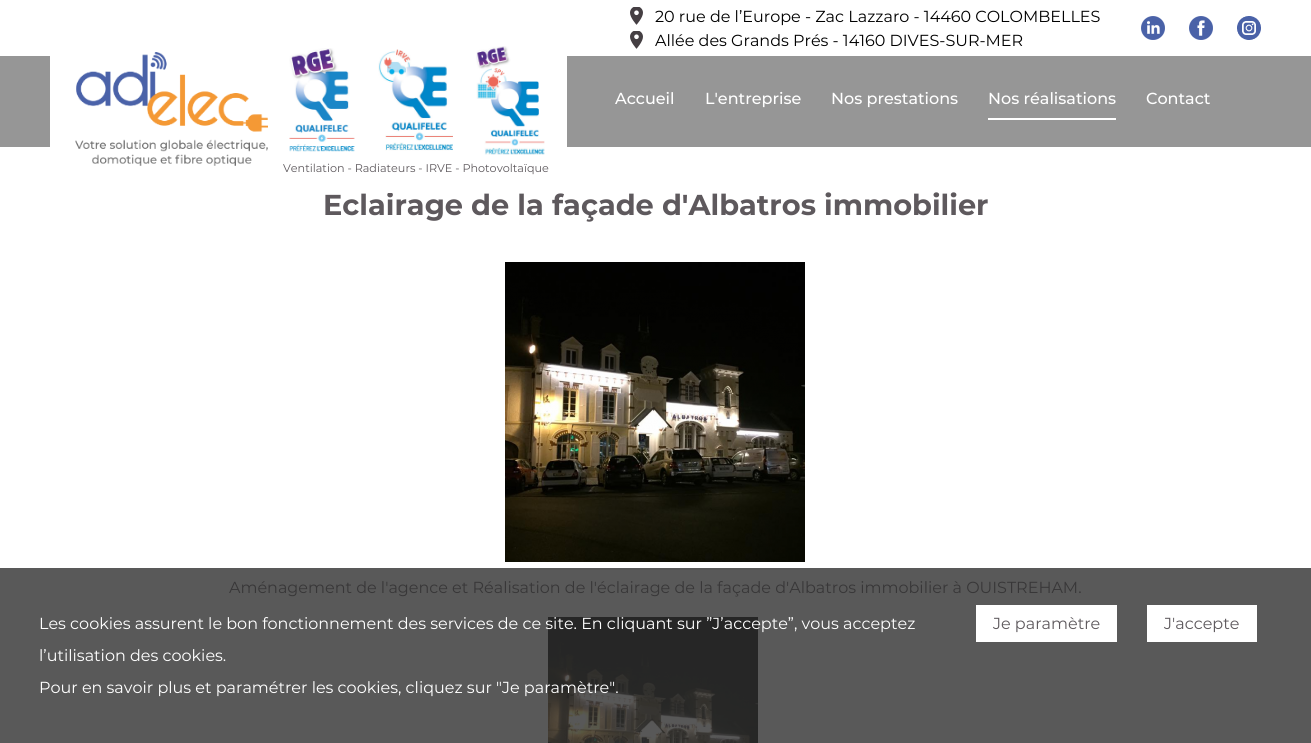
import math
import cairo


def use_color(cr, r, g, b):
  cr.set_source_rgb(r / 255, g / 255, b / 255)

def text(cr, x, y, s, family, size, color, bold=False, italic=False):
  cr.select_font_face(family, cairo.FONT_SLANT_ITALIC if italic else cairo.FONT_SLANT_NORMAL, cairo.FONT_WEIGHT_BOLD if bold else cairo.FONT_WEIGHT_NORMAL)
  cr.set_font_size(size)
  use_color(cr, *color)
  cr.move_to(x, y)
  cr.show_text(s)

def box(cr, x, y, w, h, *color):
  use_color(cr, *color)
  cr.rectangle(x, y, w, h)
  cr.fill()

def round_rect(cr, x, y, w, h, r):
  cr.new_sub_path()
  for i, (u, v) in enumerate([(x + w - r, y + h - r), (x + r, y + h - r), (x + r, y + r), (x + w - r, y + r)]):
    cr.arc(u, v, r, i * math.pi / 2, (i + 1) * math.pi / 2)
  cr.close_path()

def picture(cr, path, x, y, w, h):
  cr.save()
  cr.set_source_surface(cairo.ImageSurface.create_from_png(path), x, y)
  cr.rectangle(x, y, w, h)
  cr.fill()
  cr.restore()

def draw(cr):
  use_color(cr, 255, 255, 255)
  cr.paint()
  box(cr, 0, 568, 1311, 175, 89, 89, 89)
  picture(cr, "img_01.png", 630, 7, 13, 18)
  picture(cr, "img_01.png", 630, 31, 13, 18)
  picture(cr, "img_02.png", 1141, 16, 24, 24)
  picture(cr, "img_03.png", 1189, 16, 24, 24)
  picture(cr, "img_04.png", 1237, 16, 24, 24)
  box(cr, 0, 56, 1311, 91, 150, 150, 150)
  box(cr, 988, 118, 128, 2, 255, 255, 255)
  picture(cr, "img_09.png", 505, 262, 300, 300)
  picture(cr, "img_10.png", 548, 617, 210, 126)
  box(cr, 976, 605, 141, 37, 255, 255, 255)
  box(cr, 1147, 605, 110, 37, 255, 255, 255)
  text(cr, 655, 22, "20 rue de l’Europe - Zac Lazzaro - 14460 COLOMBELLES", "Montserrat", 16, (0, 0, 0))
  text(cr, 655, 46, "Allée des Grands Prés - 14160 DIVES-SUR-MER", "Montserrat", 16, (0, 0, 0))
  text(cr, 615, 104, "Accueil", "Montserrat Medium", 16, (255, 255, 255))
  text(cr, 705, 104, "L'entreprise", "Montserrat Medium", 16, (255, 255, 255))
  text(cr, 831, 104, "Nos prestations", "Montserrat Medium", 16, (255, 255, 255))
  text(cr, 988, 104, "Nos réalisations", "Montserrat Medium", 16, (255, 255, 255))
  text(cr, 1146, 104, "Contact", "Montserrat Medium", 16, (255, 255, 255))
  text(cr, 323, 215, "Eclairage de la façade d'Albatros immobilier", "Montserrat", 28.8, (94, 89, 93), bold=True)
  use_color(cr, 255, 255, 255)
  round_rect(cr, 50, 0, 517, 193, 32)
  cr.fill()
  text(cr, 283, 172, "Ventilation - Radiateurs - IRVE - Photovoltaïque", "Montserrat", 11.2, (94, 89, 93))
  picture(cr, "img_08.png", 476, 46, 69, 109)
  picture(cr, "img_07.png", 378, 49, 75, 102)
  picture(cr, "img_06.png", 289, 48, 66, 104)
  picture(cr, "img_05.png", 75, 52, 193, 114)
  text(cr, 229, 593, "Aménagement de l'agence et Réalisation de l'éclairage de la façade d'Albatros immobilier à OUISTREHAM.", "Montserrat", 16, (56, 55, 56))
  text(cr, 39, 629, "Les cookies assurent le bon fonctionnement des services de ce site. En cliquant sur ”J’accepte”, vous acceptez", "Montserrat", 16, (255, 255, 255))
  text(cr, 993, 629, "Je paramètre", "Montserrat", 16, (94, 89, 93))
  text(cr, 1164, 629, "J'accepte", "Montserrat", 16, (94, 89, 93))
  text(cr, 39, 661, "l’utilisation des cookies.", "Montserrat", 16, (255, 255, 255))
  text(cr, 39, 693, "Pour en savoir plus et paramétrer les cookies, cliquez sur \"Je paramètre\".", "Montserrat", 16, (255, 255, 255))


surface = cairo.ImageSurface(cairo.FORMAT_RGB24, 1311, 743)
cr = cairo.Context(surface)
options = cairo.FontOptions()
options.set_hint_metrics(cairo.HINT_METRICS_OFF)
options.set_hint_style(cairo.HINT_STYLE_NONE)
cr.set_font_options(options)
cr.set_miter_limit(4)
draw(cr)
surface.write_to_png("out.png")
